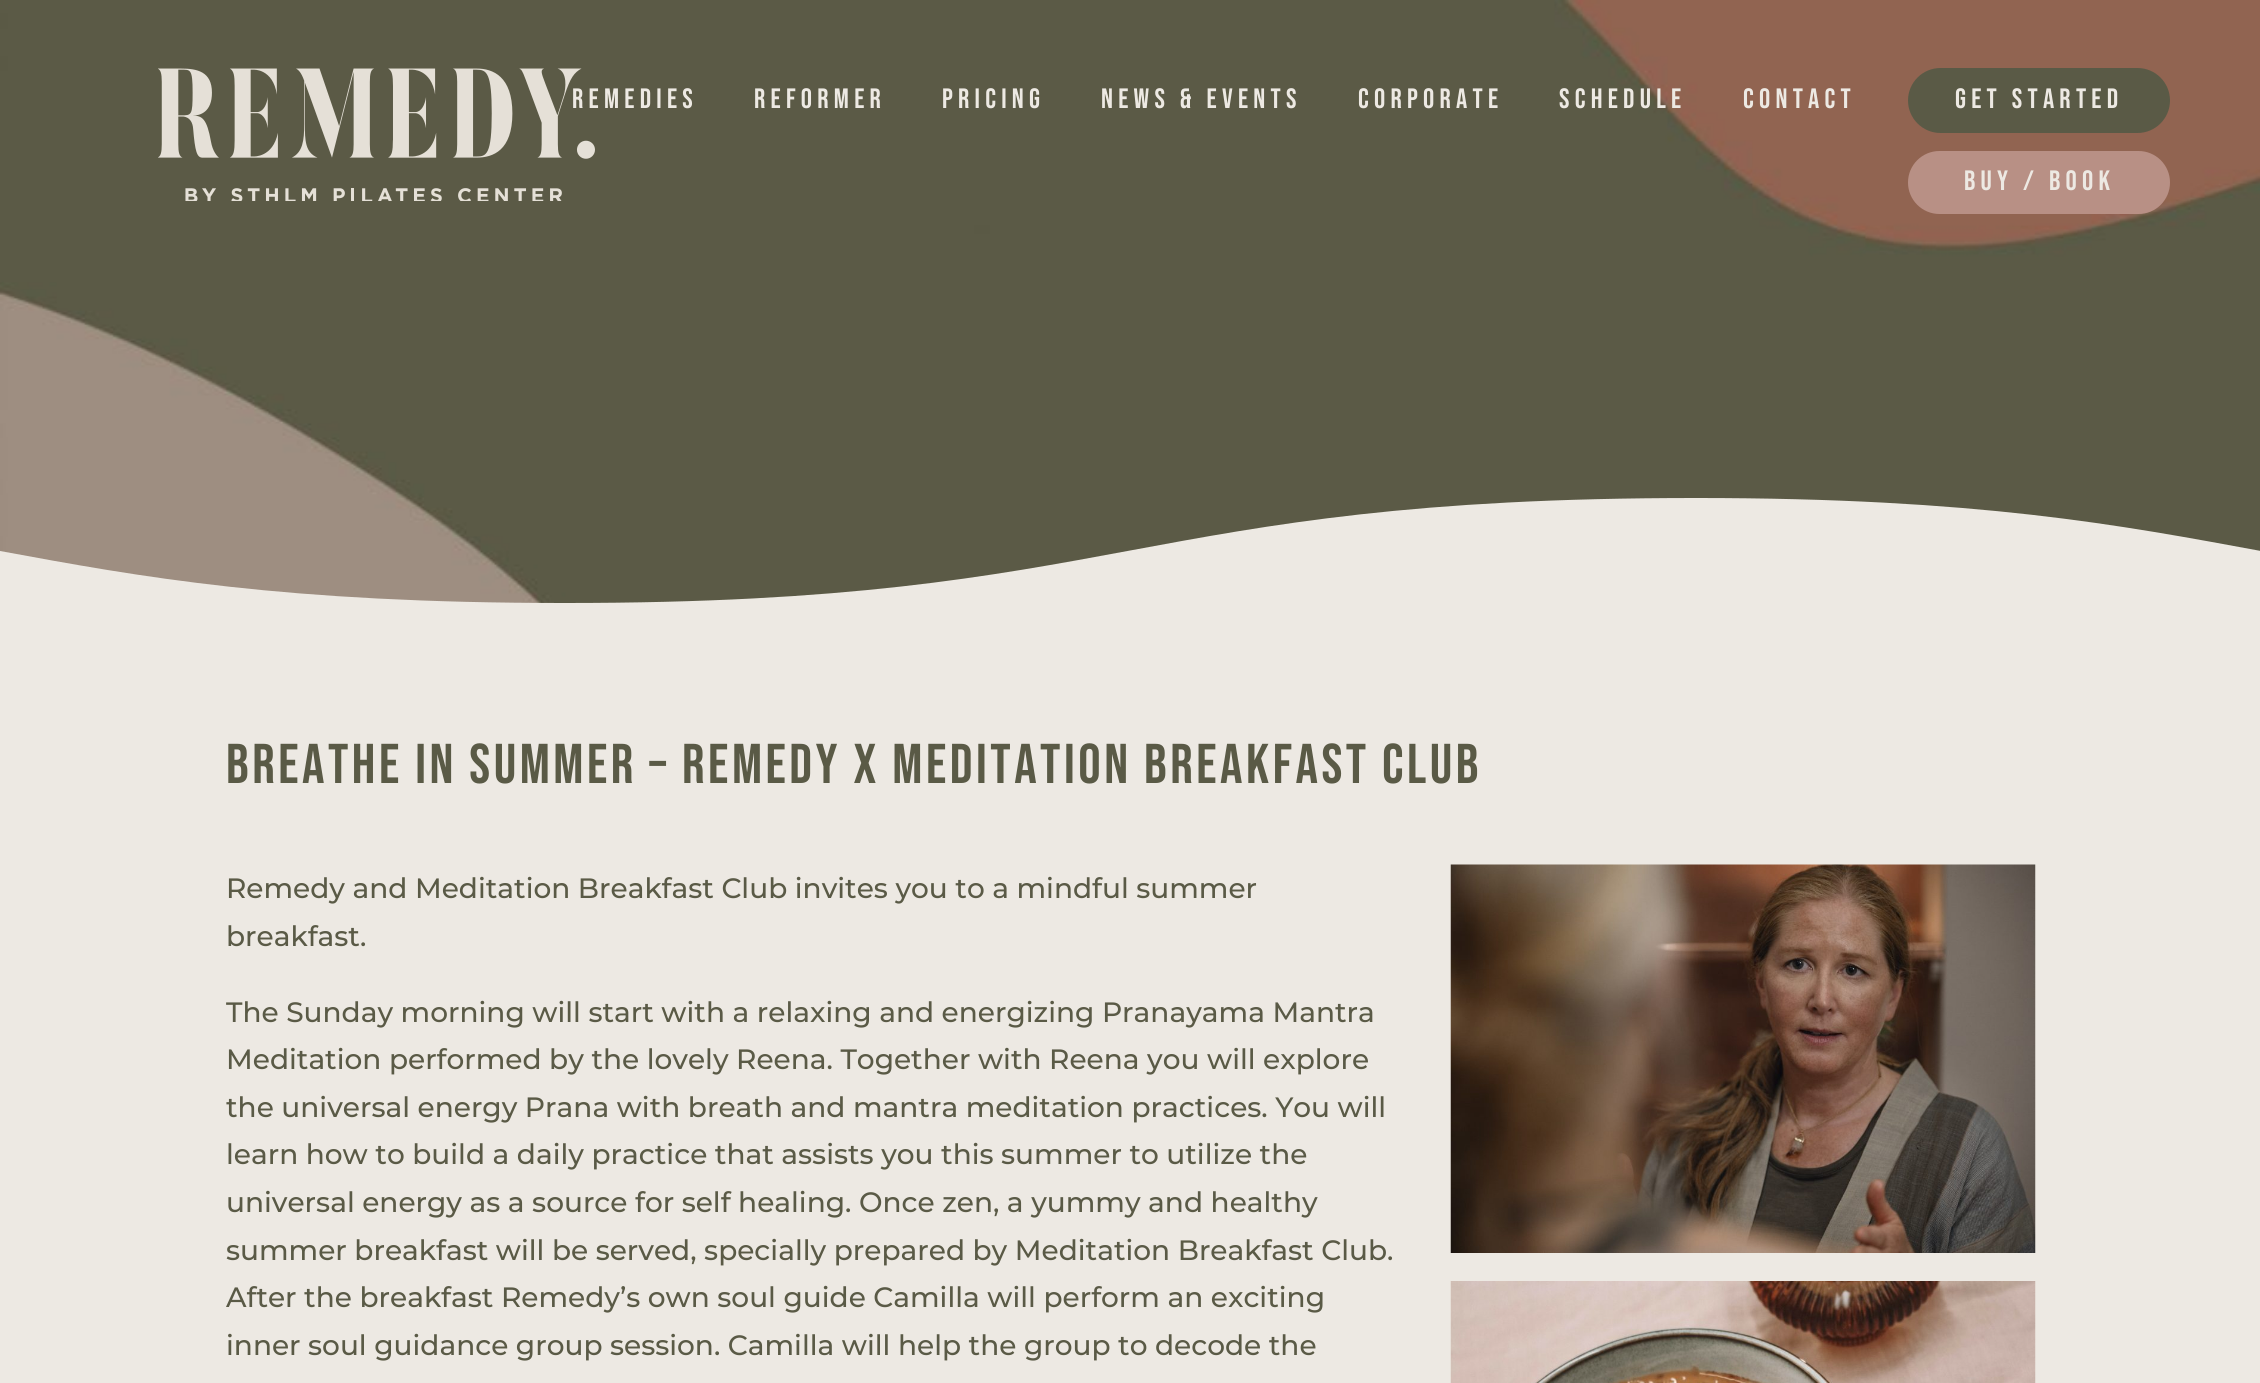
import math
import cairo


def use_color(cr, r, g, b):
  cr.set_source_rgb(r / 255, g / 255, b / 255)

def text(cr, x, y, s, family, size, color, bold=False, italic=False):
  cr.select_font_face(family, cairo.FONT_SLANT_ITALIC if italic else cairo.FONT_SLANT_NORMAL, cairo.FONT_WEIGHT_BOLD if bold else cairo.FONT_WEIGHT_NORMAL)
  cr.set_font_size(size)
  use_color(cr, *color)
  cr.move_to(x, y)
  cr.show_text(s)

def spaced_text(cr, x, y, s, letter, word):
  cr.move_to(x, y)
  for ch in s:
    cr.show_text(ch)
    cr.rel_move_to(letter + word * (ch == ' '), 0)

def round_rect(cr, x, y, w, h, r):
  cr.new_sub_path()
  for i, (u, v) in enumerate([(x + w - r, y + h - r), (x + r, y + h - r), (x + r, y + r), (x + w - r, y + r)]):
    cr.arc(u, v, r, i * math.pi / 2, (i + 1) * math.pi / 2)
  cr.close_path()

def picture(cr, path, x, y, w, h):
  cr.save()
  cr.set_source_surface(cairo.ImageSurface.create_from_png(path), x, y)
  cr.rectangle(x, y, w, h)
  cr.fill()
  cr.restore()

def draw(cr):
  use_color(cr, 237, 233, 227)
  cr.paint()
  picture(cr, "img_01.png", 0, 0, 2260, 603)
  cr.save()
  cr.rectangle(0, 462, 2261, 175)
  cr.clip()
  use_color(cr, 237, 233, 227)
  cr.new_path()
  cr.move_to(565, 603)
  cr.curve_to(283, 603, 141, 577, 0, 551)
  cr.line_to(0, 638)
  cr.line_to(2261, 638)
  cr.line_to(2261, 551)
  cr.curve_to(2120, 525, 1978, 498, 1696, 498)
  cr.curve_to(1130, 498, 1130, 603, 565, 603)
  cr.close_path()
  cr.fill()
  cr.restore()
  use_color(cr, 90, 90, 70)
  round_rect(cr, 1908, 68, 262, 65, 32.5)
  cr.fill()
  use_color(cr, 184, 144, 133)
  round_rect(cr, 1908, 151, 262, 63, 31.5)
  cr.fill()
  picture(cr, "img_03.png", 1450, 864, 586, 389)
  picture(cr, "img_04.png", 1450, 1281, 586, 102)
  cr.select_font_face("Bebas Neue")
  cr.set_font_size(28)
  use_color(cr, 237, 233, 227)
  spaced_text(cr, 572, 108, "REMEDIES", 5.25, 0)
  picture(cr, "img_02.png", 158, 68, 437, 133)
  spaced_text(cr, 754, 108, "REFORMER", 5.25, 0)
  spaced_text(cr, 942, 108, "PRICING", 5.25, 0)
  spaced_text(cr, 1101, 108, "NEWS & EVENTS", 5.25, 0)
  spaced_text(cr, 1358, 108, "CORPORATE", 5.25, 0)
  spaced_text(cr, 1559, 108, "SCHEDULE", 5.25, 0)
  spaced_text(cr, 1743, 108, "CONTACT", 5.25, 0)
  spaced_text(cr, 1955, 108, "Get Started", 5.25, 0)
  spaced_text(cr, 1964, 190, "BUY / BOOK", 5.25, 0)
  cr.set_font_size(56)
  use_color(cr, 90, 90, 70)
  spaced_text(cr, 226, 783, "BREATHE IN SUMMER – REMEDY x Meditation Breakfast Club", 3.5, 0)
  text(cr, 226, 898, "Remedy and Meditation Breakfast Club invites you to a mindful summer", "Montserrat Medium", 28, (90, 90, 70))
  text(cr, 226, 946, "breakfast.", "Montserrat Medium", 28, (90, 90, 70))
  text(cr, 226, 1022, "The Sunday morning will start with a relaxing and energizing Pranayama Mantra", "Montserrat Medium", 28, (90, 90, 70))
  text(cr, 226, 1069, "Meditation performed by the lovely Reena. Together with Reena you will explore", "Montserrat Medium", 28, (90, 90, 70))
  text(cr, 226, 1117, "the universal energy Prana with breath and mantra meditation practices. You will", "Montserrat Medium", 28, (90, 90, 70))
  text(cr, 226, 1164, "learn how to build a daily practice that assists you this summer to utilize the", "Montserrat Medium", 28, (90, 90, 70))
  text(cr, 226, 1212, "universal energy as a source for self healing. Once zen, a yummy and healthy", "Montserrat Medium", 28, (90, 90, 70))
  text(cr, 226, 1260, "summer breakfast will be served, specially prepared by Meditation Breakfast Club.", "Montserrat Medium", 28, (90, 90, 70))
  text(cr, 226, 1307, "After the breakfast Remedy’s own soul guide Camilla will perform an exciting", "Montserrat Medium", 28, (90, 90, 70))
  text(cr, 226, 1355, "inner soul guidance group session. Camilla will help the group to decode the", "Montserrat Medium", 28, (90, 90, 70))


surface = cairo.ImageSurface(cairo.FORMAT_RGB24, 2260, 1383)
cr = cairo.Context(surface)
options = cairo.FontOptions()
options.set_hint_metrics(cairo.HINT_METRICS_OFF)
options.set_hint_style(cairo.HINT_STYLE_NONE)
cr.set_font_options(options)
cr.set_miter_limit(4)
draw(cr)
surface.write_to_png("out.png")
